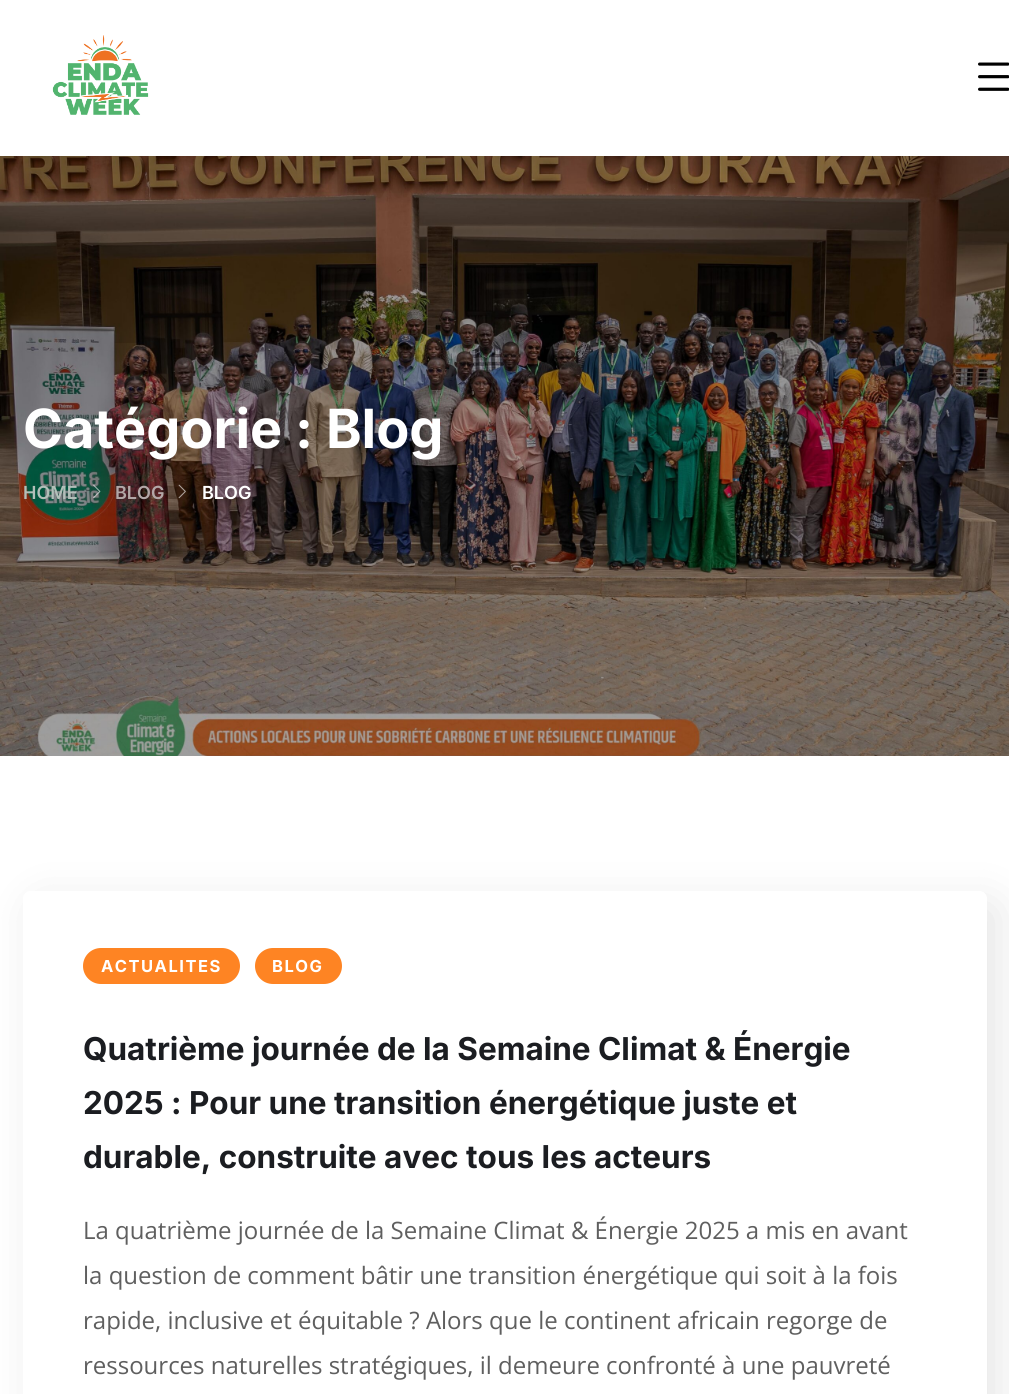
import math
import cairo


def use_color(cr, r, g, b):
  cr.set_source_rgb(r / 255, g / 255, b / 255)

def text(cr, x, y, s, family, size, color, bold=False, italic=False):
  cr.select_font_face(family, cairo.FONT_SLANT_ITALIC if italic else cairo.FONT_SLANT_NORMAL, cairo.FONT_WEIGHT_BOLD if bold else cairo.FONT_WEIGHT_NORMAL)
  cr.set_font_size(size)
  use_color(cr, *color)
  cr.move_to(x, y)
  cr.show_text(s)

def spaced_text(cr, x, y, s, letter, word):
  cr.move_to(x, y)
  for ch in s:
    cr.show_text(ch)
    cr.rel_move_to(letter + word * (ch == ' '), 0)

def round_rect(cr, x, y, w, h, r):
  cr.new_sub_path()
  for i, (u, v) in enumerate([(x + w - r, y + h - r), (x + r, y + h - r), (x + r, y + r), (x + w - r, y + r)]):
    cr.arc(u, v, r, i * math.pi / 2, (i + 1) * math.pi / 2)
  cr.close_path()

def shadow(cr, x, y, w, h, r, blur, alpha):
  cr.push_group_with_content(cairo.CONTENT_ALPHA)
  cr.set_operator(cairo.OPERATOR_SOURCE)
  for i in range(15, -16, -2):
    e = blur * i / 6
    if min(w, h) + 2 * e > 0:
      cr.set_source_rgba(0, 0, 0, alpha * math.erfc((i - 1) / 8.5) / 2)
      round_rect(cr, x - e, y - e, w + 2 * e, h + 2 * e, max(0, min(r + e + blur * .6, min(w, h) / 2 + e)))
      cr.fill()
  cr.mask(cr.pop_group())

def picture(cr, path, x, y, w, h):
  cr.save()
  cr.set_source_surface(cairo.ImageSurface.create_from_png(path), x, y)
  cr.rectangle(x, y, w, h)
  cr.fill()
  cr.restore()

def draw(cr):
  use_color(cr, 255, 255, 255)
  cr.paint()
  picture(cr, "img_03.png", 0, 156, 1009, 600)
  cr.save()
  cr.rectangle(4, 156, 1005, 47)
  cr.clip()
  use_color(cr, 0, 0, 0)
  shadow(cr, 23, 23, 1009, 156, 0, 28.5, 0.1)
  cr.restore()
  picture(cr, "img_01.png", 52, 35, 97, 80)
  picture(cr, "img_02.png", 978, 62, 31, 29)
  picture(cr, "img_04.png", 93, 484, 8, 15)
  picture(cr, "img_05.png", 178, 484, 8, 15)
  cr.save()
  cr.set_fill_rule(cairo.FILL_RULE_EVEN_ODD)
  cr.new_path()
  cr.move_to(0, 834)
  cr.line_to(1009, 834)
  cr.line_to(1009, 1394)
  cr.line_to(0, 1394)
  cr.close_path()
  cr.move_to(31, 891)
  cr.line_to(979, 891)
  cr.curve_to(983.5, 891, 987, 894.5, 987, 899)
  cr.line_to(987, 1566)
  cr.curve_to(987, 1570.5, 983.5, 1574, 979, 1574)
  cr.line_to(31, 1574)
  cr.curve_to(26.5, 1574, 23, 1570.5, 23, 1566)
  cr.line_to(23, 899)
  cr.curve_to(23, 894.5, 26.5, 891, 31, 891)
  cr.close_path()
  cr.clip()
  use_color(cr, 0, 0, 0)
  shadow(cr, 35, 903, 964, 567, 8, 22.5, 0.1)
  cr.restore()
  use_color(cr, 254, 132, 35)
  round_rect(cr, 83, 948, 157, 36, 18)
  cr.fill()
  round_rect(cr, 255, 948, 87, 36, 18)
  cr.fill()
  text(cr, 23, 448, "Catégorie : Blog", "Inter", 54, (255, 255, 255), bold=True)
  text(cr, 23, 499, "HOME", "Inter SemiBold", 18, (178, 191, 185))
  text(cr, 115, 499, "BLOG", "Inter SemiBold", 18, (179, 167, 167))
  text(cr, 202, 499, "BLOG", "Inter SemiBold", 18, (255, 255, 255))
  cr.select_font_face("Inter", cairo.FONT_SLANT_NORMAL, cairo.FONT_WEIGHT_BOLD)
  cr.set_font_size(16.5)
  spaced_text(cr, 101, 972, "ACTUALITES", 1.5, 0)
  spaced_text(cr, 272, 972, "BLOG", 1.5, 0)
  text(cr, 83, 1060, "Quatrième journée de la Semaine Climat & Énergie", "Inter", 31.5, (27, 29, 33), bold=True)
  text(cr, 83, 1114, "2025 : Pour une transition énergétique juste et", "Inter", 31.5, (27, 29, 33), bold=True)
  text(cr, 83, 1168, "durable, construite avec tous les acteurs", "Inter", 31.5, (27, 29, 33), bold=True)
  text(cr, 83, 1239, "La quatrième journée de la Semaine Climat & Énergie 2025 a mis en avant", "Open Sans", 24, (95, 95, 95))
  text(cr, 83, 1284, "la question de comment bâtir une transition énergétique qui soit à la fois", "Open Sans", 24, (95, 95, 95))
  text(cr, 83, 1329, "rapide, inclusive et équitable ? Alors que le continent africain regorge de", "Open Sans", 24, (95, 95, 95))
  text(cr, 83, 1374, "ressources naturelles stratégiques, il demeure confronté à une pauvreté", "Open Sans", 24, (95, 95, 95))


surface = cairo.ImageSurface(cairo.FORMAT_RGB24, 1009, 1394)
cr = cairo.Context(surface)
options = cairo.FontOptions()
options.set_hint_metrics(cairo.HINT_METRICS_OFF)
options.set_hint_style(cairo.HINT_STYLE_NONE)
cr.set_font_options(options)
cr.set_miter_limit(4)
draw(cr)
surface.write_to_png("out.png")
